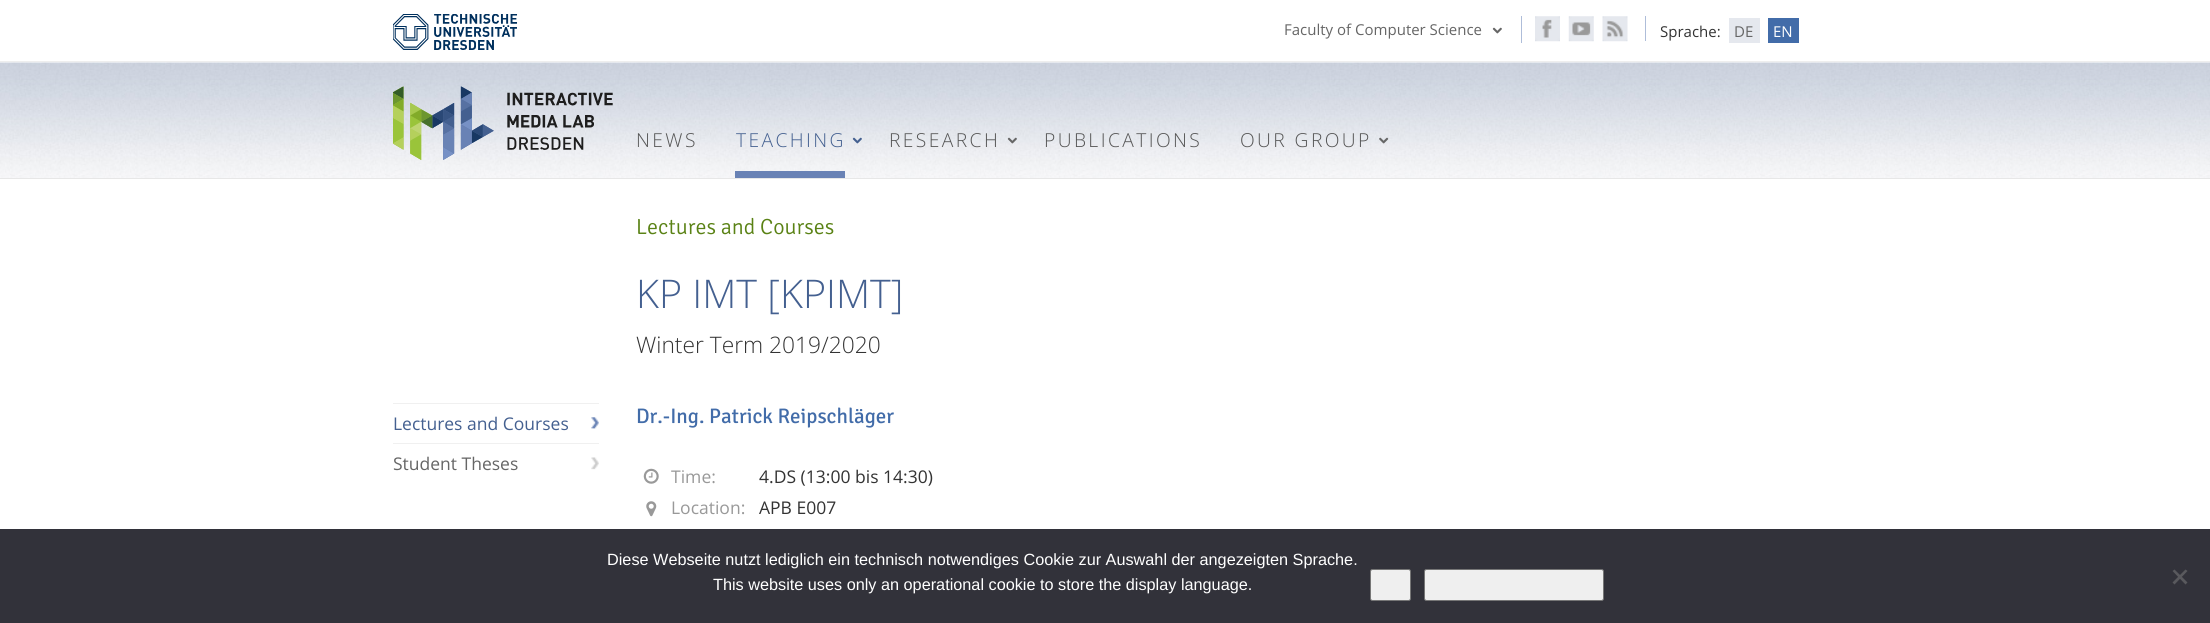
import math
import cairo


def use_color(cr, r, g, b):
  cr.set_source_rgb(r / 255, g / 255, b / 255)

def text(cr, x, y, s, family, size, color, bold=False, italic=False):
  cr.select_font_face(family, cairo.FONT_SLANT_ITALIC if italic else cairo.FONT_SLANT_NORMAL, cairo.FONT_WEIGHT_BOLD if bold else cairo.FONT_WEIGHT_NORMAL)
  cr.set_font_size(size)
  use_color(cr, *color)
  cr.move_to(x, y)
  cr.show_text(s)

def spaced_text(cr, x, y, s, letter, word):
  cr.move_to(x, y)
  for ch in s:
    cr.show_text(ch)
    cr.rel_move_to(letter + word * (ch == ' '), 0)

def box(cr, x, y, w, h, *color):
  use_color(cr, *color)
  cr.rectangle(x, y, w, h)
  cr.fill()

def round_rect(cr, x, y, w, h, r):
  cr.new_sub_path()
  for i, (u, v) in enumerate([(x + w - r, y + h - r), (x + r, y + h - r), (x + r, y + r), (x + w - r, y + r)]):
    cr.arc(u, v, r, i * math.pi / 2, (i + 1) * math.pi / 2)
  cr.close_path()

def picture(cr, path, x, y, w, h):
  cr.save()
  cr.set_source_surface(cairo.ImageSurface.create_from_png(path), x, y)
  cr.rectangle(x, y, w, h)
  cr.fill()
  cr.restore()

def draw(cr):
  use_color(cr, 255, 255, 255)
  cr.paint()
  box(cr, 0, 61, 2210, 1, 238, 238, 238)
  picture(cr, "img_01.png", 393, 14, 125, 36)
  box(cr, 1521, 16, 1, 27, 174, 189, 217)
  picture(cr, "img_02.png", 1492, 27, 10, 7)
  box(cr, 1645, 16, 1, 25, 174, 189, 217)
  picture(cr, "img_03.png", 1535, 16, 25, 26)
  picture(cr, "img_04.png", 1568, 16, 26, 26)
  picture(cr, "img_05.png", 1602, 16, 26, 26)
  box(cr, 1729, 18, 31, 25, 229, 232, 238)
  box(cr, 1768, 18, 31, 25, 66, 108, 169)
  picture(cr, "img_06.png", 0, 62, 2210, 116)
  box(cr, 0, 178, 2210, 1, 231, 231, 231)
  picture(cr, "img_07.png", 393, 86, 220, 74)
  picture(cr, "img_08.png", 852, 137, 10, 7)
  box(cr, 735, 171, 110, 7, 105, 130, 181)
  picture(cr, "img_09.png", 1007, 137, 10, 7)
  picture(cr, "img_10.png", 1379, 137, 10, 7)
  box(cr, 393, 403, 206, 1, 240, 240, 240)
  picture(cr, "img_11.png", 591, 417, 8, 12)
  box(cr, 393, 443, 206, 1, 240, 240, 240)
  picture(cr, "img_12.png", 591, 457, 8, 13)
  picture(cr, "img_13.png", 643, 468, 16, 16)
  picture(cr, "img_14.png", 646, 501, 11, 16)
  box(cr, 0, 529, 2210, 94, 50, 50, 58)
  use_color(cr, 239, 239, 239)
  round_rect(cr, 1370.5, 569.5, 40, 31, 2)
  cr.fill_preserve()
  use_color(cr, 118, 118, 118)
  cr.set_line_width(1)
  cr.stroke()
  use_color(cr, 239, 239, 239)
  round_rect(cr, 1424.5, 569.5, 179, 31, 2)
  cr.fill_preserve()
  use_color(cr, 118, 118, 118)
  cr.stroke()
  use_color(cr, 89, 89, 93)
  cr.new_path()
  cr.move_to(2185.5, 569.5)
  cr.line_to(2187.5, 571)
  cr.line_to(2174.5, 584.5)
  cr.line_to(2172.5, 582.5)
  cr.close_path()
  cr.fill()
  cr.new_path()
  cr.move_to(2172.5, 571)
  cr.line_to(2174.5, 569.5)
  cr.line_to(2187.5, 582.5)
  cr.line_to(2185.5, 584.5)
  cr.close_path()
  cr.fill()
  text(cr, 1284, 35, "Faculty of Computer Science", "Open Sans", 15, (102, 102, 102))
  text(cr, 1660, 37, "Sprache:", "Open Sans", 15, (51, 51, 51))
  text(cr, 1734, 37, "DE", "Open Sans", 15, (102, 102, 102))
  text(cr, 1773, 37, "EN", "Open Sans", 15, (255, 255, 255))
  cr.select_font_face("Open Sans Light")
  cr.set_font_size(19.25)
  use_color(cr, 85, 85, 85)
  spaced_text(cr, 636, 147, "NEWS", 2.4, 0)
  use_color(cr, 68, 96, 144)
  spaced_text(cr, 736, 147, "TEACHING", 2.4, 0)
  use_color(cr, 85, 85, 85)
  spaced_text(cr, 889, 147, "RESEARCH", 2.4, 0)
  spaced_text(cr, 1044, 147, "PUBLICATIONS", 2.4, 0)
  spaced_text(cr, 1240, 147, "OUR GROUP", 2.4, 0)
  text(cr, 636, 234, "Lectures and Courses", "Signika Light", 21.9, (90, 130, 21))
  text(cr, 636, 308, "KP IMT [KPIMT]", "Open Sans Light", 39.5, (68, 96, 144))
  text(cr, 636, 353, "Winter Term 2019/2020", "Open Sans Light", 22.75, (51, 51, 51))
  text(cr, 393, 430, "Lectures and Courses", "Open Sans", 17.5, (68, 96, 144))
  text(cr, 393, 470, "Student Theses", "Open Sans", 17.5, (102, 102, 102))
  text(cr, 636, 423, "Dr.-Ing. Patrick Reipschläger", "Signika", 21, (66, 108, 169))
  text(cr, 671, 483, "Time:", "Open Sans", 17.5, (153, 153, 153))
  text(cr, 759, 483, "4.DS (13:00 bis 14:30)", "Open Sans", 17.5, (51, 51, 51))
  text(cr, 671, 514, "Location:", "Open Sans", 17.5, (153, 153, 153))
  text(cr, 759, 514, "APB E007", "Open Sans", 17.5, (51, 51, 51))
  text(cr, 607, 565, "Diese Webseite nutzt lediglich ein technisch notwendiges Cookie zur Auswahl der angezeigten Sprache.", "Liberation Sans", 16.25, (255, 255, 255))
  text(cr, 713, 590, "This website uses only an operational cookie to store the display language.", "Liberation Sans", 16.25, (255, 255, 255))


surface = cairo.ImageSurface(cairo.FORMAT_RGB24, 2210, 623)
cr = cairo.Context(surface)
options = cairo.FontOptions()
options.set_hint_metrics(cairo.HINT_METRICS_OFF)
options.set_hint_style(cairo.HINT_STYLE_NONE)
cr.set_font_options(options)
cr.set_miter_limit(4)
draw(cr)
surface.write_to_png("out.png")
